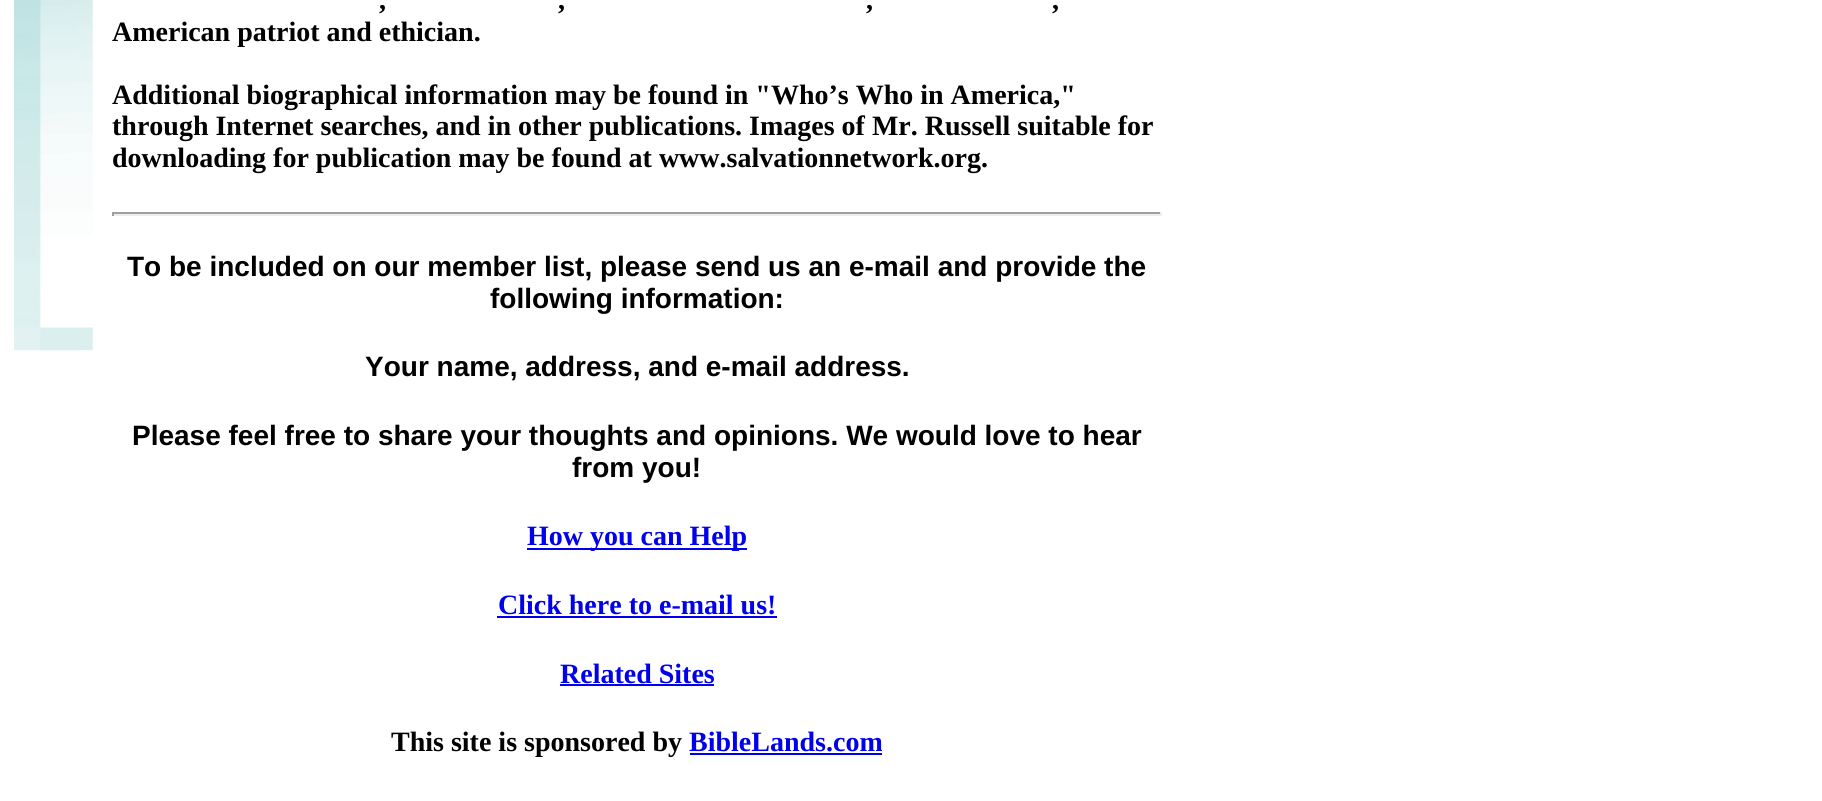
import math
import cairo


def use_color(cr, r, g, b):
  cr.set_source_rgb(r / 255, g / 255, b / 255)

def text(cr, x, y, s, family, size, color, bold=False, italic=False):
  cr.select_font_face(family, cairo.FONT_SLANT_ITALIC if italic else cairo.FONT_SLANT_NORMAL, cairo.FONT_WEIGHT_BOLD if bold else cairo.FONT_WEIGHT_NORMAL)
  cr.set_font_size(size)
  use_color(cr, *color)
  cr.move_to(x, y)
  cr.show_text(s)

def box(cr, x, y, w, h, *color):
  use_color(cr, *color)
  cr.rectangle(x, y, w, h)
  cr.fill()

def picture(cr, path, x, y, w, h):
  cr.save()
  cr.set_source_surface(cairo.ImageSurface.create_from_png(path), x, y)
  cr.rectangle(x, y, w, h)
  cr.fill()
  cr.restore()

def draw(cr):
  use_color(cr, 255, 255, 255)
  cr.paint()
  picture(cr, "img_01.png", 14, 0, 79, 351)
  box(cr, 112, 212, 1050, 2, 159, 159, 159)
  box(cr, 1160, 212, 2, 4, 238, 238, 238)
  box(cr, 112, 214, 1050, 2, 238, 238, 238)
  box(cr, 112, 212, 2, 4, 159, 159, 159)
  box(cr, 527, 548, 220, 2, 0, 0, 238)
  box(cr, 497, 616, 280, 2, 0, 0, 238)
  box(cr, 560, 684, 154, 2, 0, 0, 238)
  box(cr, 690, 753, 192, 2, 0, 0, 238)
  text(cr, 379, 9, ",", "Liberation Serif", 28, (0, 0, 0), bold=True)
  text(cr, 558, 9, ",", "Liberation Serif", 28, (0, 0, 0), bold=True)
  text(cr, 866, 9, ",", "Liberation Serif", 28, (0, 0, 0), bold=True)
  text(cr, 1052, 9, ",", "Liberation Serif", 28, (0, 0, 0), bold=True)
  text(cr, 112, 41, "American patriot and ethician.", "Liberation Serif", 28, (0, 0, 0), bold=True)
  text(cr, 112, 104, "Additional biographical information may be found in \"Who’s Who in America,\"", "Liberation Serif", 28, (0, 0, 0), bold=True)
  text(cr, 112, 135, "through Internet searches, and in other publications. Images of Mr. Russell suitable for", "Liberation Serif", 28, (0, 0, 0), bold=True)
  text(cr, 112, 167, "downloading for publication may be found at www.salvationnetwork.org.", "Liberation Serif", 28, (0, 0, 0), bold=True)
  text(cr, 127, 276, "To be included on our member list, please send us an e-mail and provide the", "Liberation Sans", 28, (0, 0, 0), bold=True)
  text(cr, 490, 308, "following information:", "Liberation Sans", 28, (0, 0, 0), bold=True)
  text(cr, 365, 376, "Your name, address, and e-mail address.", "Liberation Sans", 28, (0, 0, 0), bold=True)
  text(cr, 132, 445, "Please feel free to share your thoughts and opinions. We would love to hear", "Liberation Sans", 28, (0, 0, 0), bold=True)
  text(cr, 572, 477, "from you!", "Liberation Sans", 28, (0, 0, 0), bold=True)
  text(cr, 527, 545, "How you can Help", "Liberation Serif", 28, (0, 0, 238), bold=True)
  text(cr, 498, 614, "Click here to e-mail us!", "Liberation Serif", 28, (0, 0, 238), bold=True)
  text(cr, 560, 683, "Related Sites", "Liberation Serif", 28, (0, 0, 238), bold=True)
  text(cr, 391, 751, "This site is sponsored by", "Liberation Serif", 28, (0, 0, 0), bold=True)
  text(cr, 689, 751, "BibleLands.com", "Liberation Serif", 28, (0, 0, 238), bold=True)


surface = cairo.ImageSurface(cairo.FORMAT_RGB24, 1822, 801)
cr = cairo.Context(surface)
options = cairo.FontOptions()
options.set_hint_metrics(cairo.HINT_METRICS_OFF)
options.set_hint_style(cairo.HINT_STYLE_NONE)
cr.set_font_options(options)
cr.set_miter_limit(4)
draw(cr)
surface.write_to_png("out.png")
